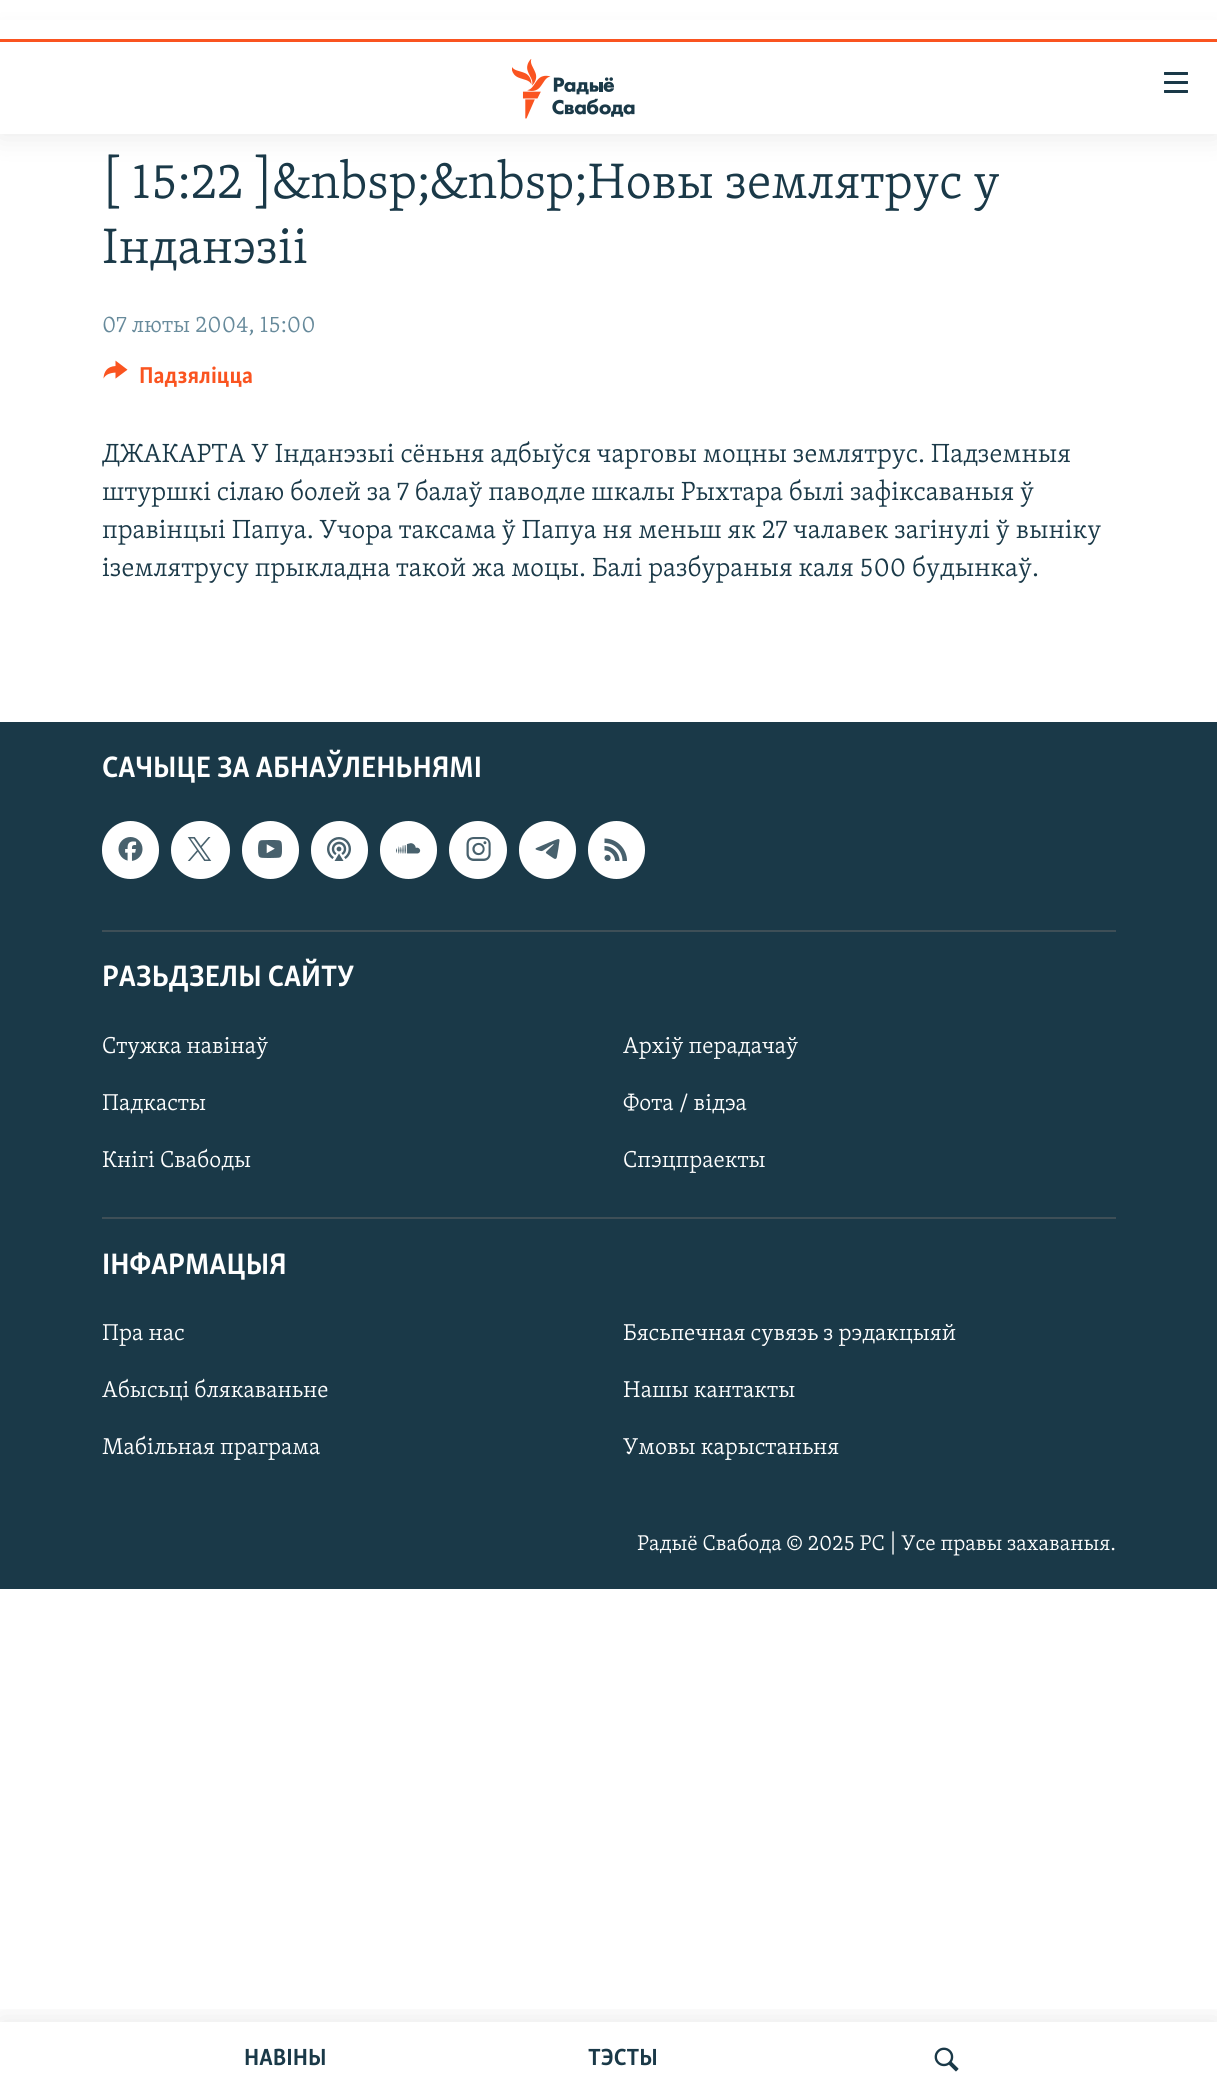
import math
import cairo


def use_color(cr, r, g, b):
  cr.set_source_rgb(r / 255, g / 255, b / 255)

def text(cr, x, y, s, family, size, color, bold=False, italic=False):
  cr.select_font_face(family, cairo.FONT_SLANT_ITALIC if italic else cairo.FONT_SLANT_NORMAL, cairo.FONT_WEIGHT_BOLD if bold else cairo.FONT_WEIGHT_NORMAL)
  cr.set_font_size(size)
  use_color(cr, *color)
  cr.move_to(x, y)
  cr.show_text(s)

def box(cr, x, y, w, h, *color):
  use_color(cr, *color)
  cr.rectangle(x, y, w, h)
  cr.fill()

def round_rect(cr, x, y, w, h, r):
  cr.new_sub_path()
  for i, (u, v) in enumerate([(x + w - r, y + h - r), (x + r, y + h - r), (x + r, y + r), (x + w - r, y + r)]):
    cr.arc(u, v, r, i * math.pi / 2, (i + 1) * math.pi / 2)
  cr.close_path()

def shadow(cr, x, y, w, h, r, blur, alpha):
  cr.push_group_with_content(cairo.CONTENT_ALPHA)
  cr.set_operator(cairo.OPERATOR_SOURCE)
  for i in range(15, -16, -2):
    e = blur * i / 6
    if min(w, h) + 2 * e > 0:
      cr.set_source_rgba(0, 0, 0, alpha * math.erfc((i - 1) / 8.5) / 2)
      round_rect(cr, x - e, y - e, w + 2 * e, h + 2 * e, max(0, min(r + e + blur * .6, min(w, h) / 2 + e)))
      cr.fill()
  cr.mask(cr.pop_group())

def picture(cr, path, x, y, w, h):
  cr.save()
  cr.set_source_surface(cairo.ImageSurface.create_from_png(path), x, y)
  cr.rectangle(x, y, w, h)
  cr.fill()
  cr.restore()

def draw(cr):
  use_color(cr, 255, 255, 255)
  cr.paint()
  use_color(cr, 0, 0, 0)
  shadow(cr, 0, 39, 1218, 95, 0, 15, 0.1)
  box(cr, 0, 20, 1217, 19, 255, 255, 255)
  picture(cr, "img_01.png", 103, 360, 25, 19)
  box(cr, 0, 722, 1217, 867, 26, 57, 72)
  use_color(cr, 255, 255, 255)
  round_rect(cr, 102, 821, 57, 58, 28.5)
  cr.fill()
  picture(cr, "img_02.png", 118, 837, 25, 24)
  round_rect(cr, 171, 821, 59, 58, 29)
  cr.fill()
  picture(cr, "img_03.png", 187, 837, 25, 24)
  round_rect(cr, 242, 821, 57, 58, 28.5)
  cr.fill()
  picture(cr, "img_04.png", 258, 840, 24, 18)
  round_rect(cr, 311, 821, 57, 58, 28.5)
  cr.fill()
  picture(cr, "img_05.png", 327, 837, 24, 24)
  round_rect(cr, 380, 821, 57, 58, 28.5)
  cr.fill()
  picture(cr, "img_06.png", 396, 843, 25, 11)
  cr.arc(478, 850, 29, 0, 2 * math.pi)
  cr.fill()
  picture(cr, "img_07.png", 466, 837, 25, 24)
  round_rect(cr, 519, 821, 57, 58, 28.5)
  cr.fill()
  picture(cr, "img_08.png", 535, 839, 25, 20)
  round_rect(cr, 588, 821, 57, 58, 28.5)
  cr.fill()
  picture(cr, "img_09.png", 604, 838, 23, 23)
  box(cr, 102, 930, 1014, 2, 62, 79, 87)
  box(cr, 102, 1217, 1014, 2, 62, 79, 87)
  box(cr, 0, 42, 1217, 92, 255, 255, 255)
  box(cr, 0, 39, 1217, 3, 250, 84, 32)
  picture(cr, "img_10.png", 512, 59, 123, 60)
  picture(cr, "img_11.png", 1164, 72, 24, 21)
  cr.save()
  cr.rectangle(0, 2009, 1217, 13)
  cr.clip()
  use_color(cr, 0, 0, 0)
  shadow(cr, 0, 2022, 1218, 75, 0, 15, 0.1)
  cr.restore()
  picture(cr, "img_12.png", 934, 2047, 25, 25)
  text(cr, 102, 198, "[ 15:22 ]&nbsp;&nbsp;Новы землятрус у", "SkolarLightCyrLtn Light", 51.25, (26, 57, 72))
  text(cr, 102, 263, "Інданэзіі", "SkolarLightCyrLtn Light", 51.25, (26, 57, 72))
  text(cr, 102, 332, "07 люты 2004, 15:00", "SkolarLightCyrLtn Light", 23.6, (103, 138, 155))
  text(cr, 139, 383, "Падзяліцца", "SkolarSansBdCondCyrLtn", 23.6, (250, 84, 32), bold=True)
  text(cr, 102, 462, "ДЖАКАРТА У Інданэзыі сёньня адбыўся чарговы моцны землятрус. Падземныя", "SkolarLightCyrLtn Light", 27, (26, 57, 72))
  text(cr, 102, 500, "штуршкі сілаю болей за 7 балаў паводле шкалы Рыхтара былі зафіксаваныя ў", "SkolarLightCyrLtn Light", 27, (26, 57, 72))
  text(cr, 102, 538, "правінцыі Папуа. Учора таксама ў Папуа ня меньш як 27 чалавек загінулі ў выніку", "SkolarLightCyrLtn Light", 27, (26, 57, 72))
  text(cr, 102, 576, "іземлятрусу прыкладна такой жа моцы. Балі разбураныя каля 500 будынкаў.", "SkolarLightCyrLtn Light", 27, (26, 57, 72))
  text(cr, 102, 777, "САЧЫЦЕ ЗА АБНАЎЛЕНЬНЯМІ", "SkolarSansBdCondCyrLtn", 30.4, (255, 255, 255), bold=True)
  text(cr, 102, 986, "РАЗЬДЗЕЛЫ САЙТУ", "SkolarSansBdCondCyrLtn", 30.4, (255, 255, 255), bold=True)
  text(cr, 102, 1053, "Стужка навінаў", "SkolarLightCyrLtn Light", 23.6, (255, 255, 255))
  text(cr, 623, 1053, "Архіў перадачаў", "SkolarLightCyrLtn Light", 23.6, (255, 255, 255))
  text(cr, 102, 1110, "Падкасты", "SkolarLightCyrLtn Light", 23.6, (255, 255, 255))
  text(cr, 623, 1110, "Фота / відэа", "SkolarLightCyrLtn Light", 23.6, (255, 255, 255))
  text(cr, 102, 1167, "Кнігі Свабоды", "SkolarLightCyrLtn Light", 23.6, (255, 255, 255))
  text(cr, 623, 1167, "Спэцпраекты", "SkolarLightCyrLtn Light", 23.6, (255, 255, 255))
  text(cr, 102, 1274, "ІНФАРМАЦЫЯ", "SkolarSansBdCondCyrLtn", 30.4, (255, 255, 255), bold=True)
  text(cr, 102, 1340, "Пра нас", "SkolarLightCyrLtn Light", 23.6, (255, 255, 255))
  text(cr, 623, 1340, "Бясьпечная сувязь з рэдакцыяй", "SkolarLightCyrLtn Light", 23.6, (255, 255, 255))
  text(cr, 102, 1397, "Абысьці блякаваньне", "SkolarLightCyrLtn Light", 23.6, (255, 255, 255))
  text(cr, 623, 1397, "Нашы кантакты", "SkolarLightCyrLtn Light", 23.6, (255, 255, 255))
  text(cr, 102, 1454, "Мабільная праграма", "SkolarLightCyrLtn Light", 23.6, (255, 255, 255))
  text(cr, 623, 1454, "Умовы карыстаньня", "SkolarLightCyrLtn Light", 23.6, (255, 255, 255))
  text(cr, 637, 1550, "Радыё Свабода © 2025 РС | Усе правы захаваныя.", "SkolarLightCyrLtn Light", 21.9, (255, 255, 255))
  text(cr, 244, 2065, "НАВІНЫ", "SkolarSansBdCondCyrLtn", 24, (26, 57, 72), bold=True)
  text(cr, 588, 2065, "ТЭСТЫ", "SkolarSansBdCondCyrLtn", 24, (26, 57, 72), bold=True)


surface = cairo.ImageSurface(cairo.FORMAT_RGB24, 1217, 2096)
cr = cairo.Context(surface)
options = cairo.FontOptions()
options.set_hint_metrics(cairo.HINT_METRICS_OFF)
options.set_hint_style(cairo.HINT_STYLE_NONE)
cr.set_font_options(options)
cr.set_miter_limit(4)
draw(cr)
surface.write_to_png("out.png")
